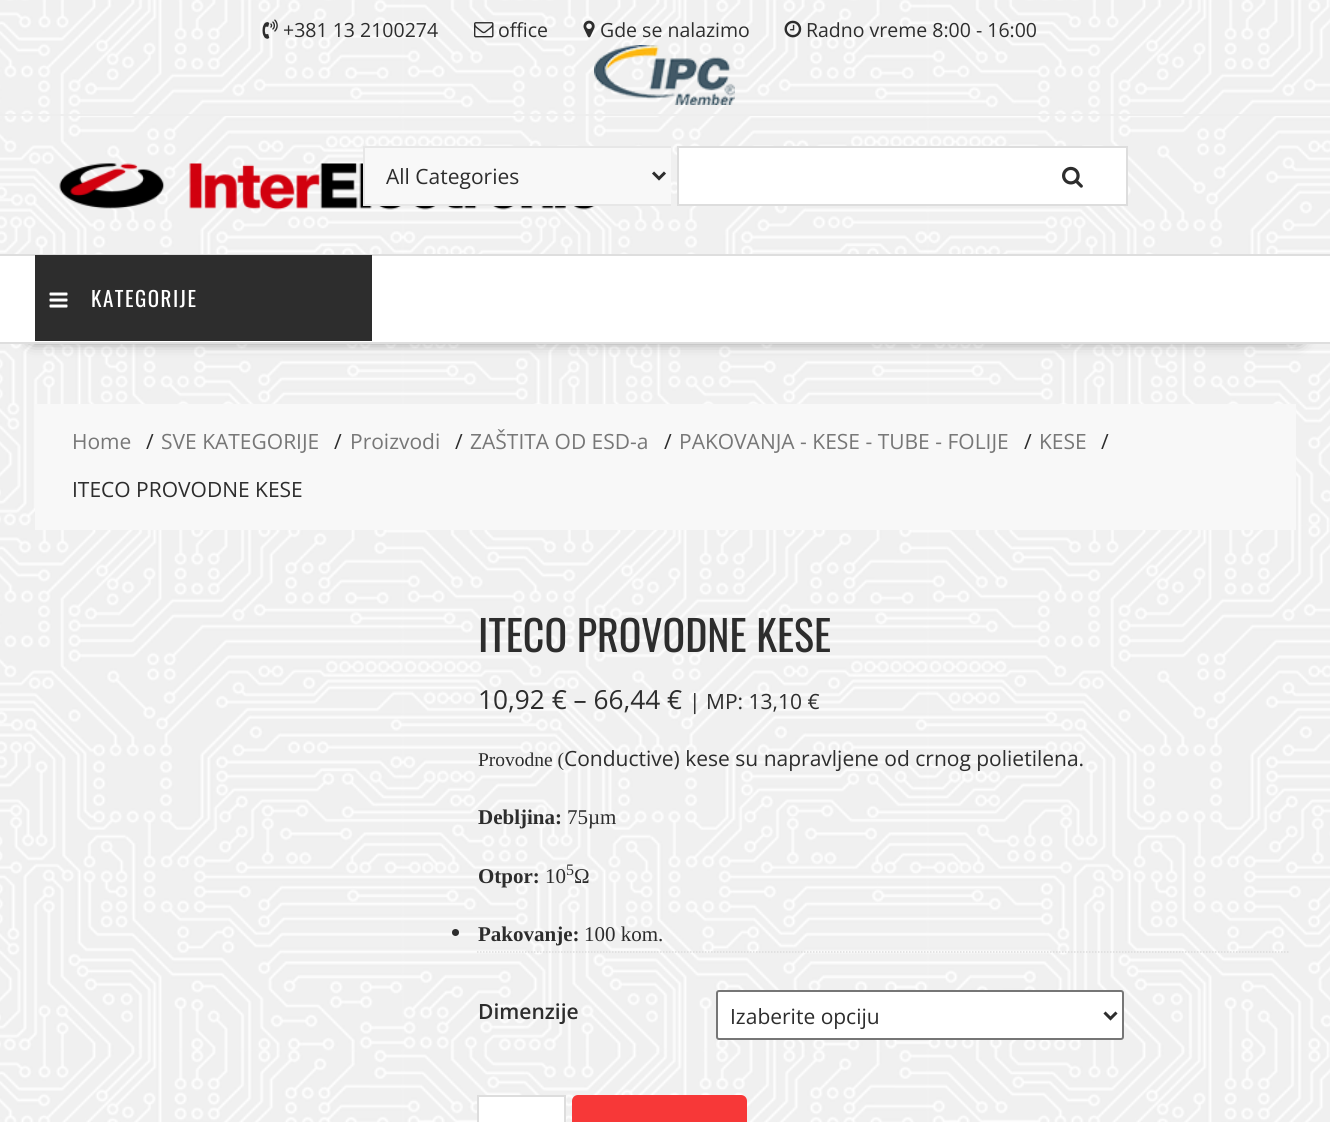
import math
import cairo


def use_color(cr, r, g, b):
  cr.set_source_rgb(r / 255, g / 255, b / 255)

def text(cr, x, y, s, family, size, color, bold=False, italic=False):
  cr.select_font_face(family, cairo.FONT_SLANT_ITALIC if italic else cairo.FONT_SLANT_NORMAL, cairo.FONT_WEIGHT_BOLD if bold else cairo.FONT_WEIGHT_NORMAL)
  cr.set_font_size(size)
  use_color(cr, *color)
  cr.move_to(x, y)
  cr.show_text(s)

def spaced_text(cr, x, y, s, letter, word):
  cr.move_to(x, y)
  for ch in s:
    cr.show_text(ch)
    cr.rel_move_to(letter + word * (ch == ' '), 0)

def box(cr, x, y, w, h, *color):
  use_color(cr, *color)
  cr.rectangle(x, y, w, h)
  cr.fill()

def round_rect(cr, x, y, w, h, r):
  cr.new_sub_path()
  for i, (u, v) in enumerate([(x + w - r, y + h - r), (x + r, y + h - r), (x + r, y + r), (x + w - r, y + r)]):
    cr.arc(u, v, r, i * math.pi / 2, (i + 1) * math.pi / 2)
  cr.close_path()

def shadow(cr, x, y, w, h, r, blur, alpha):
  cr.push_group_with_content(cairo.CONTENT_ALPHA)
  cr.set_operator(cairo.OPERATOR_SOURCE)
  for i in range(15, -16, -2):
    e = blur * i / 6
    if min(w, h) + 2 * e > 0:
      cr.set_source_rgba(0, 0, 0, alpha * math.erfc((i - 1) / 8.5) / 2)
      round_rect(cr, x - e, y - e, w + 2 * e, h + 2 * e, max(0, min(r + e + blur * .6, min(w, h) / 2 + e)))
      cr.fill()
  cr.mask(cr.pop_group())

def picture(cr, path, x, y, w, h):
  cr.save()
  cr.set_source_surface(cairo.ImageSurface.create_from_png(path), x, y)
  cr.rectangle(x, y, w, h)
  cr.fill()
  cr.restore()

def draw(cr):
  use_color(cr, 255, 255, 255)
  cr.paint()
  picture(cr, "img_01.png", 0, 0, 1330, 1122)
  box(cr, 0, 114, 1330, 2, 238, 238, 238)
  picture(cr, "img_02.png", 262, 19, 16, 20)
  picture(cr, "img_03.png", 474, 22, 20, 16)
  picture(cr, "img_04.png", 583, 20, 12, 18)
  picture(cr, "img_05.png", 784, 20, 18, 18)
  picture(cr, "img_06.png", 594, 45, 141, 60)
  picture(cr, "img_07.png", 59, 163, 536, 47)
  use_color(cr, 255, 255, 255)
  cr.rectangle(678, 147, 449, 58)
  cr.fill_preserve()
  use_color(cr, 221, 221, 221)
  cr.stroke()
  box(cr, 365, 148, 306, 56, 248, 248, 248)
  box(cr, 363, 146, 308, 2, 231, 231, 231)
  box(cr, 363, 204, 308, 2, 231, 231, 231)
  box(cr, 363, 146, 2, 60, 231, 231, 231)
  cr.new_path()
  cr.move_to(653, 172.5)
  cr.line_to(659, 178.5)
  cr.line_to(665, 172.5)
  use_color(cr, 45, 45, 45)
  cr.set_line_width(3)
  cr.stroke()
  picture(cr, "img_08.png", 1062, 166, 21, 22)
  use_color(cr, 0, 0, 0)
  shadow(cr, 32, 311, 1267, 27, 0, 8, 0.75)
  box(cr, 0, 256, 1330, 86, 255, 255, 255)
  box(cr, 0, 254, 1330, 2, 222, 222, 222)
  box(cr, 0, 342, 1330, 2, 222, 222, 222)
  box(cr, 35, 255, 337, 86, 45, 45, 45)
  picture(cr, "img_09.png", 49, 292, 19, 16)
  box(cr, 35, 404, 1261, 126, 248, 248, 248)
  use_color(cr, 45, 45, 45)
  cr.arc(455.5, 932.5, 3.5, 0, 2 * math.pi)
  cr.fill()
  cr.new_path()
  cr.move_to(477, 952)
  cr.line_to(1290, 952)
  use_color(cr, 221, 221, 221)
  cr.set_line_width(1.5)
  cr.set_dash([1.5, 1.5])
  cr.stroke()
  use_color(cr, 255, 255, 255)
  round_rect(cr, 717, 991, 406, 48, 2)
  cr.fill_preserve()
  use_color(cr, 118, 118, 118)
  cr.set_line_width(2)
  cr.set_dash([])
  cr.stroke()
  cr.new_path()
  cr.move_to(1104.5, 1012.5)
  cr.line_to(1110.5, 1018.5)
  cr.line_to(1116.5, 1012.5)
  use_color(cr, 45, 45, 45)
  cr.set_line_width(3)
  cr.stroke()
  use_color(cr, 255, 255, 255)
  cr.rectangle(478, 1096, 87, 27)
  cr.fill_preserve()
  use_color(cr, 221, 221, 221)
  cr.set_line_width(2)
  cr.stroke()
  use_color(cr, 247, 56, 56)
  round_rect(cr, 573, 1096, 173, 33, 5)
  cr.fill_preserve()
  cr.stroke()
  text(cr, 283, 37, "+381 13 2100274", "Open Sans", 19.5, (45, 45, 45))
  text(cr, 498, 37, "office", "Open Sans", 19.5, (45, 45, 45))
  text(cr, 600, 37, "Gde se nalazimo", "Open Sans", 19.5, (45, 45, 45))
  text(cr, 806, 37, "Radno vreme 8:00 - 16:00", "Open Sans", 19.5, (45, 45, 45))
  text(cr, 386, 184, "All Categories", "Open Sans", 21, (45, 45, 45))
  cr.select_font_face("Oswald")
  use_color(cr, 255, 255, 255)
  spaced_text(cr, 91, 307, "KATEGORIJE", 1.5, 0)
  text(cr, 72, 449, "Home", "Open Sans", 21, (119, 119, 119))
  text(cr, 146, 449, "/", "Open Sans", 21, (45, 45, 45))
  text(cr, 161, 449, "SVE KATEGORIJE", "Open Sans", 21, (119, 119, 119))
  text(cr, 334, 449, "/", "Open Sans", 21, (45, 45, 45))
  text(cr, 350, 449, "Proizvodi", "Open Sans", 21, (119, 119, 119))
  text(cr, 455, 449, "/", "Open Sans", 21, (45, 45, 45))
  text(cr, 470, 449, "ZAŠTITA OD ESD-a", "Open Sans", 21, (119, 119, 119))
  text(cr, 664, 449, "/", "Open Sans", 21, (45, 45, 45))
  text(cr, 679, 449, "PAKOVANJA - KESE - TUBE - FOLIJE", "Open Sans", 21, (119, 119, 119))
  text(cr, 1024, 449, "/", "Open Sans", 21, (45, 45, 45))
  text(cr, 1039, 449, "KESE", "Open Sans", 21, (119, 119, 119))
  text(cr, 1101, 449, "/", "Open Sans", 21, (45, 45, 45))
  text(cr, 72, 497, "ITECO PROVODNE KESE", "Open Sans", 21, (45, 45, 45))
  text(cr, 478, 652, "ITECO PROVODNE KESE", "Oswald", 42, (45, 45, 45))
  text(cr, 478, 709, "10,92 € – 66,44 €", "Open Sans", 26.25, (45, 45, 45))
  text(cr, 689, 709, "| MP: 13,10 €", "Open Sans", 21, (45, 45, 45))
  text(cr, 478, 766, "Provodne (", "Liberation Serif", 19.5, (45, 45, 45))
  text(cr, 564, 766, "Conductive) kese su napravljene od crnog polietilena.", "Open Sans", 21, (45, 45, 45))
  text(cr, 478, 824, "Debljina:", "Liberation Serif", 21, (45, 45, 45), bold=True)
  text(cr, 567, 824, "75µm", "Liberation Serif", 21, (45, 45, 45))
  text(cr, 478, 883, "Otpor:", "Liberation Serif", 21, (45, 45, 45), bold=True)
  text(cr, 545, 883, "10", "Liberation Serif", 21, (45, 45, 45))
  text(cr, 566, 875, "5", "Liberation Serif", 16, (45, 45, 45))
  text(cr, 574, 883, "Ω", "Liberation Serif", 21, (45, 45, 45))
  text(cr, 478, 941, "Pakovanje:", "Liberation Serif", 21, (45, 45, 45), bold=True)
  text(cr, 584, 941, "100 kom.", "Liberation Serif", 21, (45, 45, 45))
  text(cr, 478, 1019, "Dimenzije", "Open Sans SemiBold", 21, (45, 45, 45))
  text(cr, 730, 1024, "Izaberite opciju", "Open Sans", 21, (45, 45, 45))


surface = cairo.ImageSurface(cairo.FORMAT_RGB24, 1330, 1122)
cr = cairo.Context(surface)
options = cairo.FontOptions()
options.set_hint_metrics(cairo.HINT_METRICS_OFF)
options.set_hint_style(cairo.HINT_STYLE_NONE)
cr.set_font_options(options)
cr.set_miter_limit(4)
draw(cr)
surface.write_to_png("out.png")
